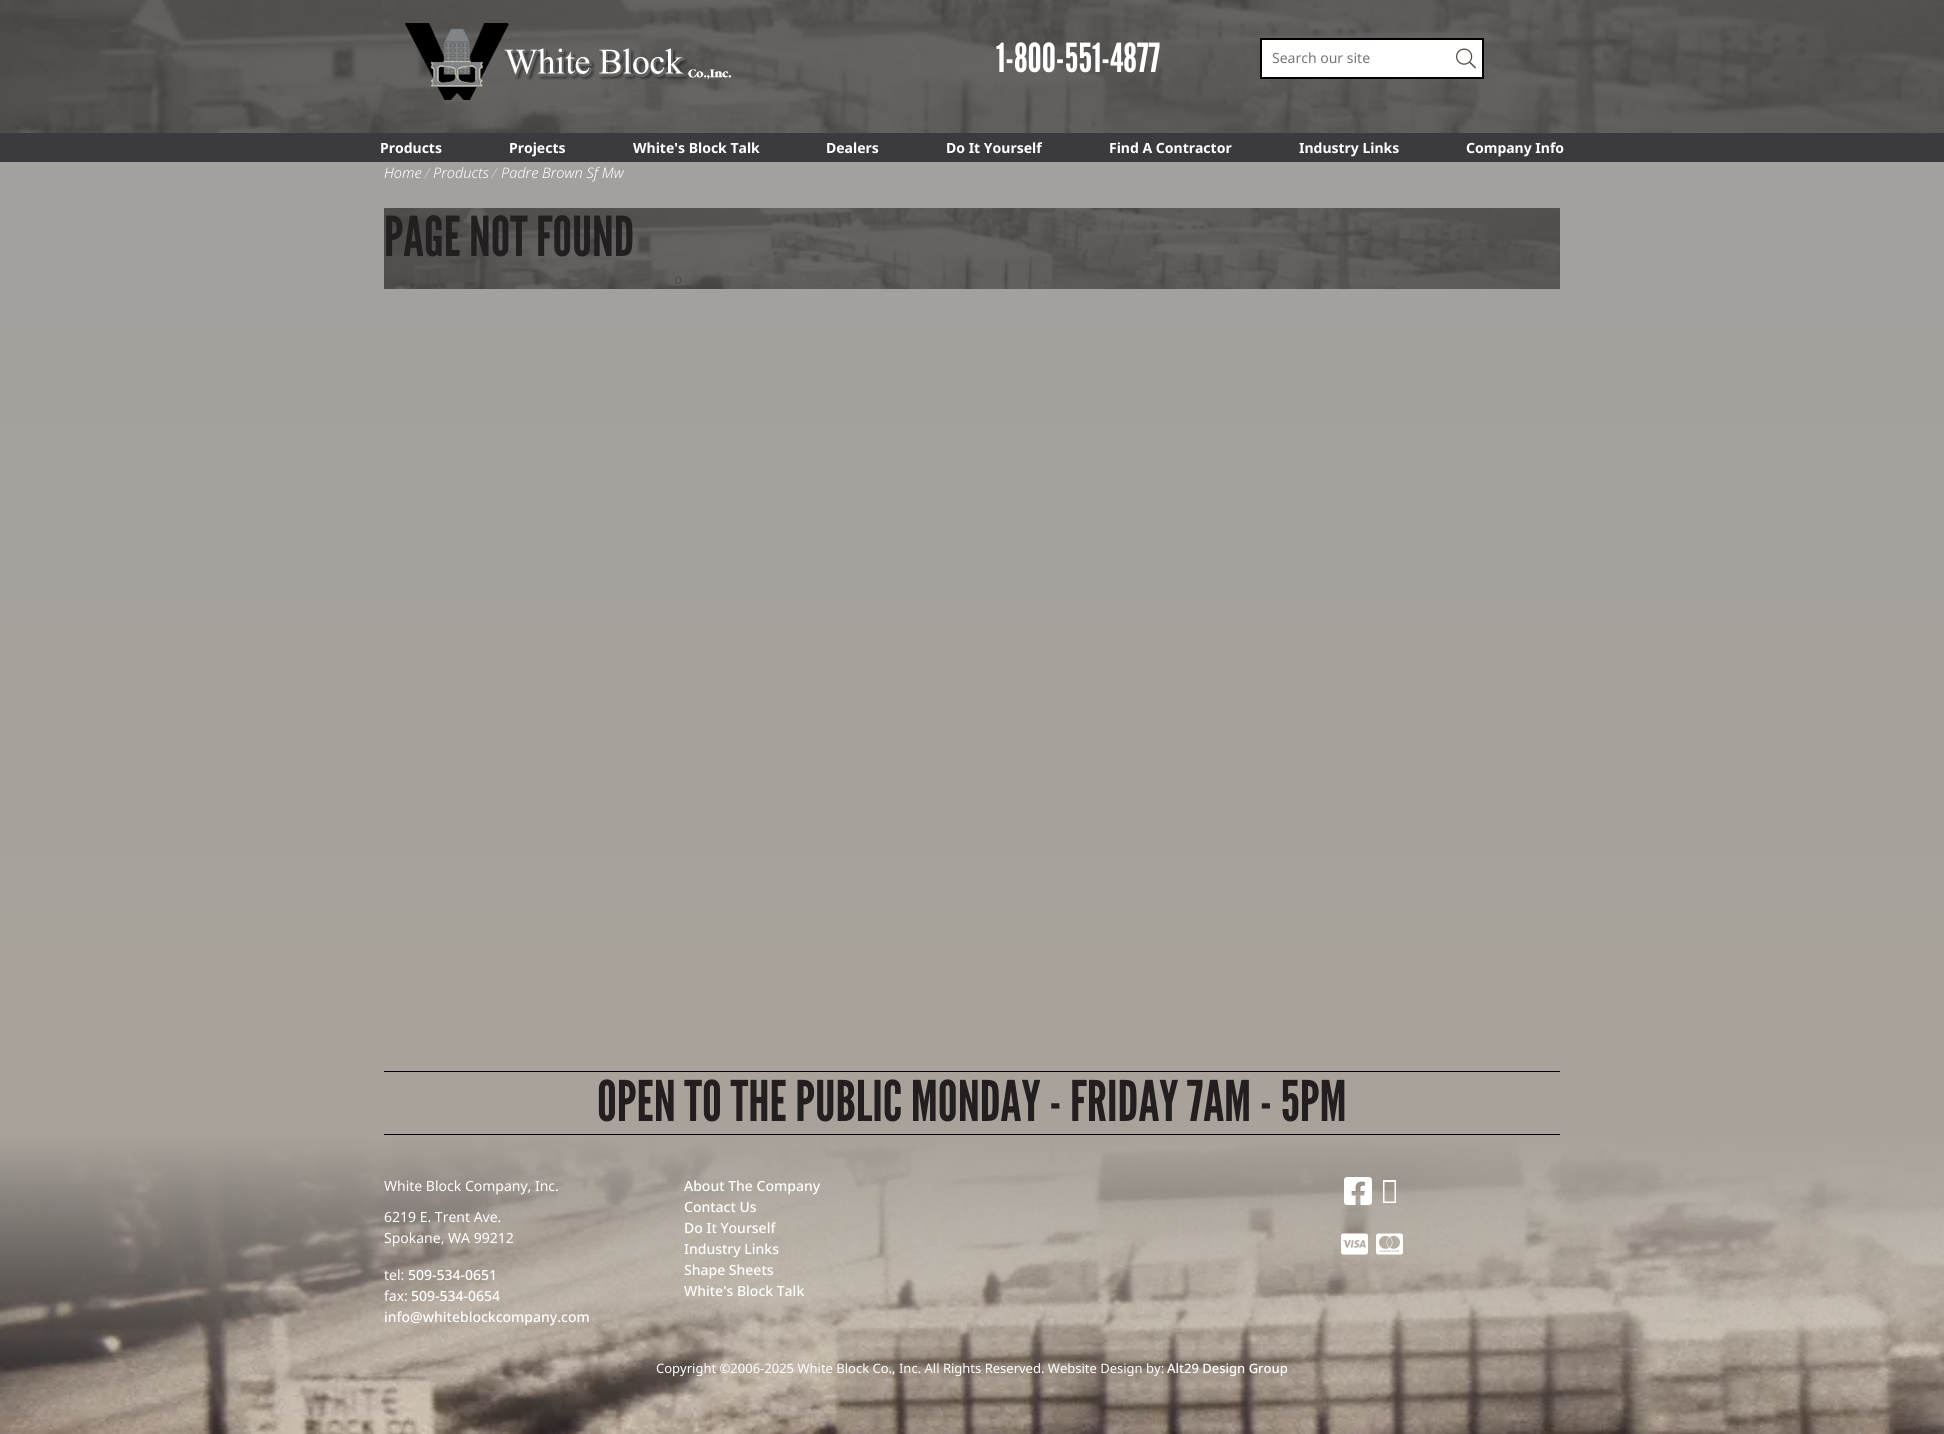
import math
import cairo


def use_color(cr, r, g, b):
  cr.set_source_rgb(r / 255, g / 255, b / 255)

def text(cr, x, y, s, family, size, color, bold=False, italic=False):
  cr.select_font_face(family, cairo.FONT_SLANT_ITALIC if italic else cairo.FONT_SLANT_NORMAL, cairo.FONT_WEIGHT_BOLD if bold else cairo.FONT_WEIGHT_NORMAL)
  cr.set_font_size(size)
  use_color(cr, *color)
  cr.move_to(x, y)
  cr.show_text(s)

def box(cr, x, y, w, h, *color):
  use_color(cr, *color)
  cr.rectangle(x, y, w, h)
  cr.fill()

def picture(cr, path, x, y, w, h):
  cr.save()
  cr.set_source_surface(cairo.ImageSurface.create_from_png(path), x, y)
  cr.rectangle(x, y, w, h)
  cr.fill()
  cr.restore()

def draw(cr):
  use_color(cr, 84, 81, 77)
  cr.paint()
  picture(cr, "img_01.png", 0, 0, 1944, 133)
  picture(cr, "img_02.png", 405, 23, 326, 77)
  use_color(cr, 255, 255, 255)
  cr.rectangle(1261, 39, 222, 39)
  cr.fill_preserve()
  use_color(cr, 0, 0, 0)
  cr.stroke()
  picture(cr, "img_03.png", 1456, 48, 20, 21)
  box(cr, 0, 133, 1944, 29, 59, 59, 61)
  gradient = cairo.LinearGradient(972, 162, 972, 1135)
  gradient.add_color_stop_rgba(0, 0.639, 0.627, 0.616, 1)
  gradient.add_color_stop_rgba(0.9, 0.659, 0.635, 0.604, 1)
  cr.set_source(gradient)
  cr.rectangle(0, 162, 1944, 973)
  cr.fill()
  gradient = cairo.LinearGradient(972, 162, 972, 1135)
  gradient.add_color_stop_rgba(0, 0.322, 0.314, 0.31, 1)
  gradient.add_color_stop_rgba(0.9, 0.329, 0.318, 0.302, 1)
  cr.set_source(gradient)
  cr.rectangle(384, 208, 1176, 81)
  cr.fill()
  picture(cr, "img_04.png", 384, 208, 1176, 81)
  box(cr, 384, 1071, 1176, 1, 0, 0, 0)
  box(cr, 384, 1134, 1176, 1, 0, 0, 0)
  picture(cr, "img_05.png", 0, 1135, 1944, 299)
  picture(cr, "img_06.png", 1344, 1177, 28, 28)
  use_color(cr, 255, 255, 255)
  cr.new_path()
  cr.move_to(1383, 1203)
  cr.line_to(1383, 1180)
  cr.line_to(1396, 1180)
  cr.line_to(1396, 1203)
  cr.close_path()
  cr.move_to(1384.5, 1201.5)
  cr.line_to(1394.5, 1201.5)
  cr.line_to(1394.5, 1182)
  cr.line_to(1384.5, 1182)
  cr.close_path()
  cr.fill()
  picture(cr, "img_07.png", 1341, 1233, 27, 22)
  picture(cr, "img_08.png", 1376, 1233, 27, 22)
  text(cr, 996, 72, "1-800-551-4877", "League Gothic", 40, (255, 255, 255))
  text(cr, 1272, 63, "Search our site", "Noto Sans", 14, (117, 117, 117))
  text(cr, 380, 153, "Products", "Noto Sans", 14, (255, 255, 255), bold=True)
  text(cr, 509, 153, "Projects", "Noto Sans", 14, (255, 255, 255), bold=True)
  text(cr, 633, 153, "White's Block Talk", "Noto Sans", 14, (255, 255, 255), bold=True)
  text(cr, 826, 153, "Dealers", "Noto Sans", 14, (255, 255, 255), bold=True)
  text(cr, 946, 153, "Do It Yourself", "Noto Sans", 14, (255, 255, 255), bold=True)
  text(cr, 1109, 153, "Find A Contractor", "Noto Sans", 14, (255, 255, 255), bold=True)
  text(cr, 1299, 153, "Industry Links", "Noto Sans", 14, (255, 255, 255), bold=True)
  text(cr, 1466, 153, "Company Info", "Noto Sans", 14, (255, 255, 255), bold=True)
  text(cr, 384, 178, "Home", "Noto Sans Light", 14.5, (255, 255, 255), italic=True)
  text(cr, 425, 178, "/", "Noto Sans Thin", 14.5, (255, 255, 255), italic=True)
  text(cr, 433, 178, "Products", "Noto Sans Light", 14.5, (255, 255, 255), italic=True)
  text(cr, 492, 178, "/", "Noto Sans Thin", 14.5, (255, 255, 255), italic=True)
  text(cr, 501, 178, "Padre Brown Sf Mw", "Noto Sans Light", 14.5, (255, 255, 255), italic=True)
  text(cr, 384, 256, "PAGE NOT FOUND", "League Gothic", 55, (35, 31, 32))
  text(cr, 674, 284, "o", "Noto Sans", 14, (81, 75, 68))
  text(cr, 597, 1121, "OPEN TO THE PUBLIC MONDAY - FRIDAY 7AM - 5PM", "League Gothic", 56, (35, 31, 32))
  text(cr, 384, 1191, "White Block Company, Inc.", "Noto Sans", 14, (255, 255, 255))
  text(cr, 384, 1222, "6219 E. Trent Ave.", "Noto Sans", 14, (255, 255, 255))
  text(cr, 384, 1243, "Spokane, WA 99212", "Noto Sans", 14, (255, 255, 255))
  text(cr, 384, 1280, "tel:", "Noto Sans", 14, (255, 255, 255))
  text(cr, 408, 1280, "509-534-0651", "Noto Sans Medium", 14, (255, 255, 255))
  text(cr, 384, 1301, "fax:", "Noto Sans", 14, (255, 255, 255))
  text(cr, 411, 1301, "509-534-0654", "Noto Sans Medium", 14, (255, 255, 255))
  text(cr, 384, 1322, "info@whiteblockcompany.com", "Noto Sans Medium", 14, (255, 255, 255))
  text(cr, 684, 1191, "About The Company", "Noto Sans Medium", 14, (255, 255, 255))
  text(cr, 684, 1212, "Contact Us", "Noto Sans Medium", 14, (255, 255, 255))
  text(cr, 684, 1233, "Do It Yourself", "Noto Sans Medium", 14, (255, 255, 255))
  text(cr, 684, 1254, "Industry Links", "Noto Sans Medium", 14, (255, 255, 255))
  text(cr, 684, 1275, "Shape Sheets", "Noto Sans Medium", 14, (255, 255, 255))
  text(cr, 684, 1296, "White's Block Talk", "Noto Sans Medium", 14, (255, 255, 255))
  text(cr, 656, 1373, "Copyright ©2006-2025 White Block Co., Inc. All Rights Reserved. Website Design by:", "Noto Sans", 13, (255, 255, 255))
  text(cr, 1167, 1373, "Alt29 Design Group", "Noto Sans Medium", 13, (255, 255, 255))


surface = cairo.ImageSurface(cairo.FORMAT_RGB24, 1944, 1434)
cr = cairo.Context(surface)
options = cairo.FontOptions()
options.set_hint_metrics(cairo.HINT_METRICS_OFF)
options.set_hint_style(cairo.HINT_STYLE_NONE)
cr.set_font_options(options)
cr.set_miter_limit(4)
draw(cr)
surface.write_to_png("out.png")
